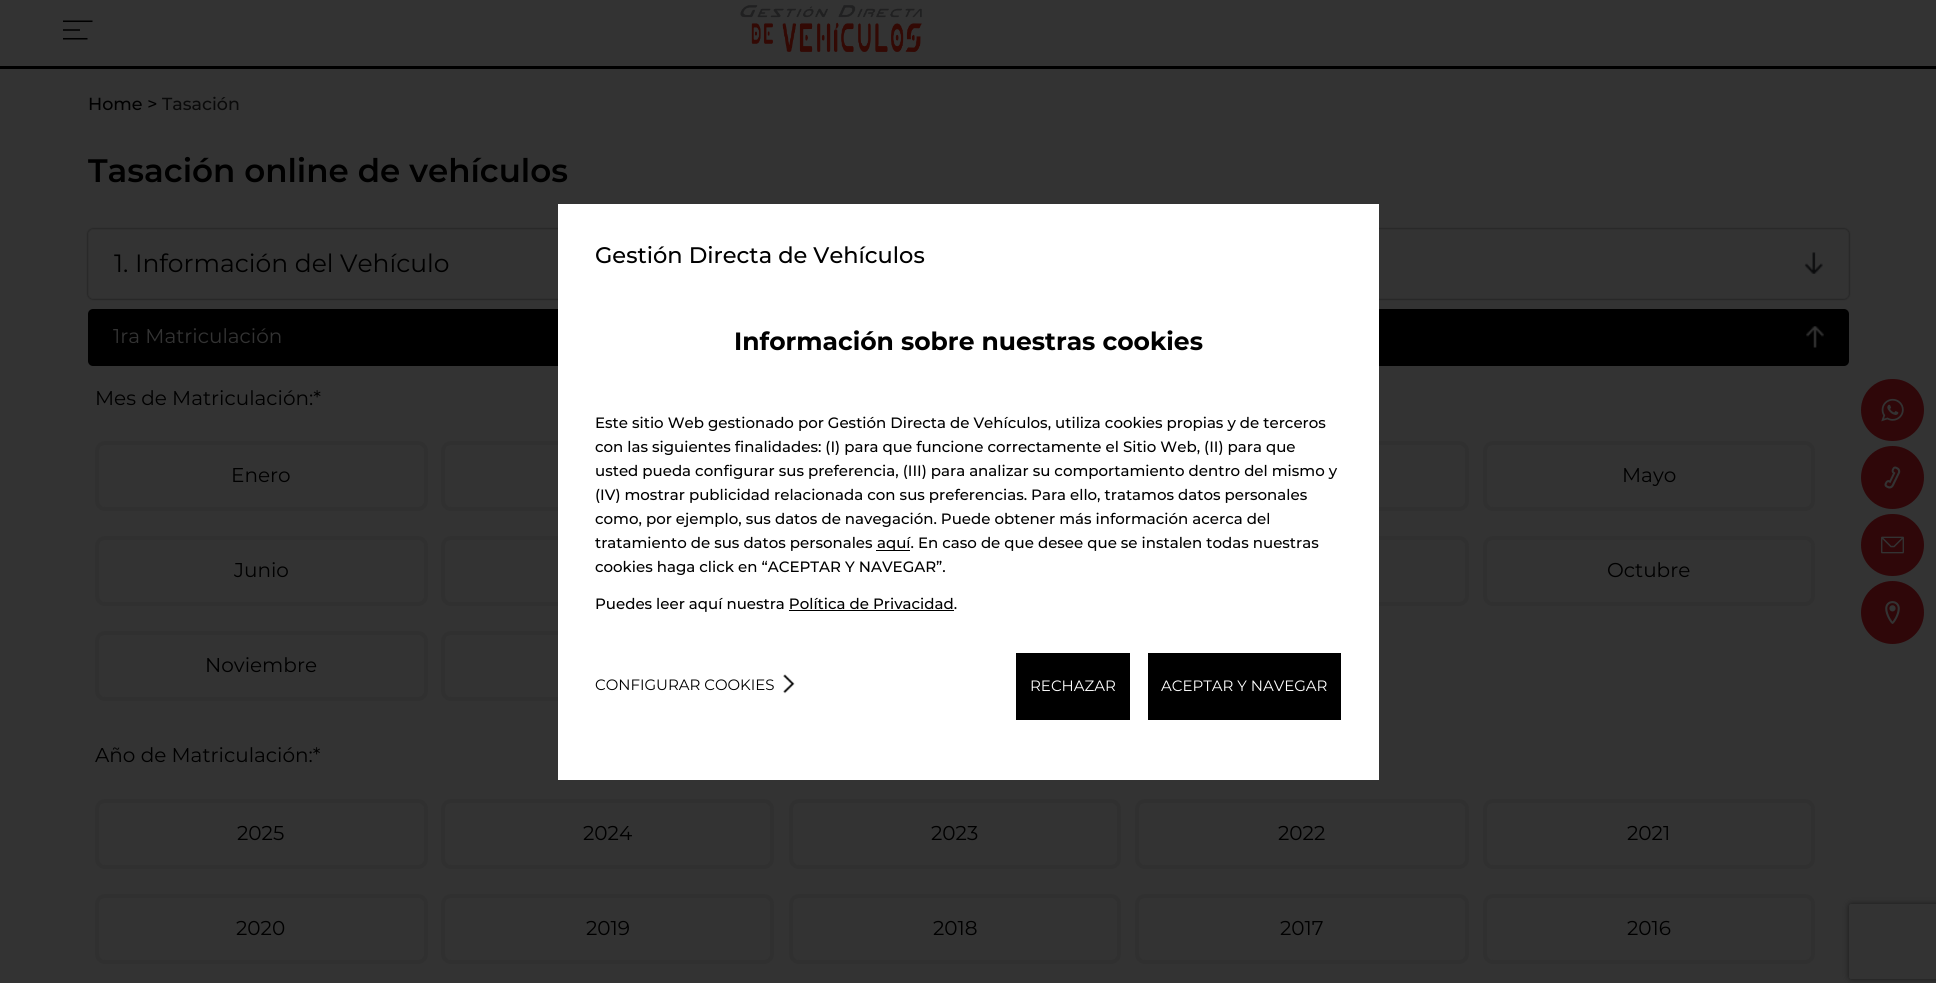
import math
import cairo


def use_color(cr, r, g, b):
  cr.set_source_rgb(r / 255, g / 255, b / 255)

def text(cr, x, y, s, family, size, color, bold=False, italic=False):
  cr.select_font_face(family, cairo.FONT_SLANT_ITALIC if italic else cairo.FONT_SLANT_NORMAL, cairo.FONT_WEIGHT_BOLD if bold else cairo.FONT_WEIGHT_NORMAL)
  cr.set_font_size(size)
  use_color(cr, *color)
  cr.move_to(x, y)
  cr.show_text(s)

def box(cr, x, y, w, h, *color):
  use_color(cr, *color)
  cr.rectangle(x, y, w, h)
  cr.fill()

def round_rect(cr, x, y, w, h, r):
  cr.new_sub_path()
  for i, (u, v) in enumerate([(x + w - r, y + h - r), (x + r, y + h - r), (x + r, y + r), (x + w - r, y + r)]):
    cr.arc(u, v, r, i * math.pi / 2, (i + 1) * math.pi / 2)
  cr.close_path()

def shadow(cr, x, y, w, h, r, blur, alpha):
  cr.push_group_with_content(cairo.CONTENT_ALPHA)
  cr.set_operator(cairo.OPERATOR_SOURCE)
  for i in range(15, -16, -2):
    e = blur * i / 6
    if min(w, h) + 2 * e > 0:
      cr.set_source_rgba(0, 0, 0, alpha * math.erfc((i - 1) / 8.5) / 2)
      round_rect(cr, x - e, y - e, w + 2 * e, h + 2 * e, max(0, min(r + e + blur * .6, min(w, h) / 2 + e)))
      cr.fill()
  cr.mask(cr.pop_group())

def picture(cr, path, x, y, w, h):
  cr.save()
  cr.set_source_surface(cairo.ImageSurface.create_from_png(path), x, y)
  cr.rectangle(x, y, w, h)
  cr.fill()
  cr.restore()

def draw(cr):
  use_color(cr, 51, 51, 51)
  cr.paint()
  box(cr, 0, 66, 1936, 3, 0, 0, 0)
  picture(cr, "img_01.png", 63, 20, 30, 20)
  picture(cr, "img_02.png", 740, 5, 182, 47)
  use_color(cr, 20, 20, 20)
  shadow(cr, 88, 229, 1761, 70, 5, 1, 1)
  use_color(cr, 51, 51, 51)
  round_rect(cr, 88.5, 229.5, 1760, 69, 4.5)
  cr.fill_preserve()
  use_color(cr, 48, 48, 48)
  cr.set_line_width(1)
  cr.stroke()
  picture(cr, "img_03.png", 1804, 252, 19, 22)
  use_color(cr, 0, 0, 0)
  round_rect(cr, 88, 309, 1761, 57, 5)
  cr.fill()
  picture(cr, "img_04.png", 1806, 326, 18, 22)
  round_rect(cr, 97, 443, 329, 66, 8)
  use_color(cr, 48, 48, 48)
  cr.set_line_width(4)
  cr.stroke()
  round_rect(cr, 443, 443, 329, 66, 8)
  cr.stroke()
  round_rect(cr, 1137, 443, 330, 66, 8)
  cr.stroke()
  round_rect(cr, 1485, 443, 328, 66, 8)
  cr.stroke()
  round_rect(cr, 97, 538, 329, 66, 8)
  cr.stroke()
  round_rect(cr, 443, 538, 329, 66, 8)
  cr.stroke()
  round_rect(cr, 1137, 538, 330, 66, 8)
  cr.stroke()
  round_rect(cr, 1485, 538, 328, 66, 8)
  cr.stroke()
  round_rect(cr, 97, 633, 329, 66, 8)
  cr.stroke()
  round_rect(cr, 443, 633, 329, 66, 8)
  cr.stroke()
  round_rect(cr, 97, 801, 329, 66, 8)
  cr.stroke()
  round_rect(cr, 443, 801, 329, 66, 8)
  cr.stroke()
  round_rect(cr, 791, 801, 328, 66, 8)
  cr.stroke()
  round_rect(cr, 1137, 801, 330, 66, 8)
  cr.stroke()
  round_rect(cr, 1485, 801, 328, 66, 8)
  cr.stroke()
  round_rect(cr, 97, 896, 329, 66, 8)
  cr.stroke()
  round_rect(cr, 443, 896, 329, 66, 8)
  cr.stroke()
  round_rect(cr, 791, 896, 328, 66, 8)
  cr.stroke()
  round_rect(cr, 1137, 896, 330, 66, 8)
  cr.stroke()
  round_rect(cr, 1485, 896, 328, 66, 8)
  cr.stroke()
  box(cr, 558, 204, 821, 576, 255, 255, 255)
  box(cr, 876, 550, 34, 1, 0, 0, 0)
  box(cr, 789, 610, 165, 1, 0, 0, 0)
  picture(cr, "img_05.png", 783, 674, 12, 20)
  box(cr, 1016, 653, 114, 67, 0, 0, 0)
  box(cr, 1148, 653, 193, 67, 0, 0, 0)
  use_color(cr, 47, 7, 9)
  round_rect(cr, 1861, 379, 63, 62, 31)
  cr.fill()
  picture(cr, "img_06.png", 1881, 398, 23, 24)
  cr.arc(1892.5, 477.5, 31.5, 0, 2 * math.pi)
  cr.fill()
  picture(cr, "img_07.png", 1884, 466, 17, 23)
  round_rect(cr, 1861, 514, 63, 62, 31)
  cr.fill()
  picture(cr, "img_08.png", 1881, 536, 23, 18)
  cr.arc(1892.5, 612.5, 31.5, 0, 2 * math.pi)
  cr.fill()
  picture(cr, "img_09.png", 1885, 601, 15, 23)
  cr.save()
  cr.set_fill_rule(cairo.FILL_RULE_EVEN_ODD)
  cr.new_path()
  cr.move_to(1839, 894)
  cr.line_to(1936, 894)
  cr.line_to(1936, 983)
  cr.line_to(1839, 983)
  cr.close_path()
  cr.move_to(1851.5, 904)
  cr.line_to(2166.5, 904)
  cr.curve_to(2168, 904, 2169, 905, 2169, 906.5)
  cr.line_to(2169, 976.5)
  cr.curve_to(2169, 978, 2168, 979, 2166.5, 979)
  cr.line_to(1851.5, 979)
  cr.curve_to(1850, 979, 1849, 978, 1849, 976.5)
  cr.line_to(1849, 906.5)
  cr.curve_to(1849, 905, 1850, 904, 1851.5, 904)
  cr.close_path()
  cr.clip()
  use_color(cr, 26, 26, 26)
  shadow(cr, 1849, 904, 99, 75, 2.5, 3, 1)
  cr.restore()
  text(cr, 88, 110, "Home >", "Montserrat Medium", 17.5, (0, 0, 0))
  text(cr, 162, 110, "Tasación", "Montserrat Medium", 17.5, (10, 10, 10))
  text(cr, 88, 182, "Tasación online de vehículos", "Montserrat SemiBold", 32.5, (0, 0, 0))
  text(cr, 114, 272, "1. Información del Vehículo", "Montserrat", 25, (0, 0, 0))
  text(cr, 113, 343, "1ra Matriculación", "Montserrat", 20, (51, 51, 51))
  text(cr, 95, 405, "Mes de Matriculación:*", "Montserrat", 20, (0, 0, 0))
  text(cr, 231, 482, "Enero", "Montserrat", 20, (0, 0, 0))
  text(cr, 1622, 482, "Mayo", "Montserrat", 20, (0, 0, 0))
  text(cr, 234, 577, "Junio", "Montserrat", 20, (0, 0, 0))
  text(cr, 1607, 577, "Octubre", "Montserrat", 20, (0, 0, 0))
  text(cr, 205, 672, "Noviembre", "Montserrat", 20, (0, 0, 0))
  text(cr, 95, 762, "Año de Matriculación:*", "Montserrat", 20, (0, 0, 0))
  text(cr, 237, 840, "2025", "Montserrat", 20, (0, 0, 0))
  text(cr, 583, 840, "2024", "Montserrat", 20, (0, 0, 0))
  text(cr, 931, 840, "2023", "Montserrat", 20, (0, 0, 0))
  text(cr, 1278, 840, "2022", "Montserrat", 20, (0, 0, 0))
  text(cr, 1627, 840, "2021", "Montserrat", 20, (0, 0, 0))
  text(cr, 236, 935, "2020", "Montserrat", 20, (0, 0, 0))
  text(cr, 586, 935, "2019", "Montserrat", 20, (0, 0, 0))
  text(cr, 933, 935, "2018", "Montserrat", 20, (0, 0, 0))
  text(cr, 1280, 935, "2017", "Montserrat", 20, (0, 0, 0))
  text(cr, 1627, 935, "2016", "Montserrat", 20, (0, 0, 0))
  text(cr, 595, 263, "Gestión Directa de Vehículos", "Montserrat Medium", 22.5, (0, 0, 0))
  text(cr, 734, 350, "Información sobre nuestras cookies", "Montserrat", 25, (0, 0, 0), bold=True)
  text(cr, 595, 428, "Este sitio Web gestionado por Gestión Directa de Vehículos, utiliza cookies propias y de terceros", "Montserrat Medium", 15, (0, 0, 0))
  text(cr, 595, 452, "con las siguientes finalidades: (I) para que funcione correctamente el Sitio Web, (II) para que", "Montserrat Medium", 15, (0, 0, 0))
  text(cr, 595, 476, "usted pueda configurar sus preferencia, (III) para analizar su comportamiento dentro del mismo y", "Montserrat Medium", 15, (0, 0, 0))
  text(cr, 595, 500, "(IV) mostrar publicidad relacionada con sus preferencias. Para ello, tratamos datos personales", "Montserrat Medium", 15, (0, 0, 0))
  text(cr, 595, 524, "como, por ejemplo, sus datos de navegación. Puede obtener más información acerca del", "Montserrat Medium", 15, (0, 0, 0))
  text(cr, 595, 548, "tratamiento de sus datos personales", "Montserrat Medium", 15, (0, 0, 0))
  text(cr, 877, 548, "aquí. En caso de que desee que se instalen todas nuestras", "Montserrat Medium", 15, (0, 0, 0))
  text(cr, 595, 572, "cookies haga click en “ACEPTAR Y NAVEGAR”.", "Montserrat Medium", 15, (0, 0, 0))
  text(cr, 595, 609, "Puedes leer aquí nuestra Política de Privacidad.", "Montserrat Medium", 15, (0, 0, 0))
  text(cr, 595, 690, "CONFIGURAR COOKIES", "Montserrat", 15, (0, 0, 0))
  text(cr, 1030, 691, "RECHAZAR", "Montserrat", 15, (255, 255, 255))
  text(cr, 1161, 691, "ACEPTAR Y NAVEGAR", "Montserrat", 15, (255, 255, 255))


surface = cairo.ImageSurface(cairo.FORMAT_RGB24, 1936, 983)
cr = cairo.Context(surface)
options = cairo.FontOptions()
options.set_hint_metrics(cairo.HINT_METRICS_OFF)
options.set_hint_style(cairo.HINT_STYLE_NONE)
cr.set_font_options(options)
cr.set_miter_limit(4)
draw(cr)
surface.write_to_png("out.png")
